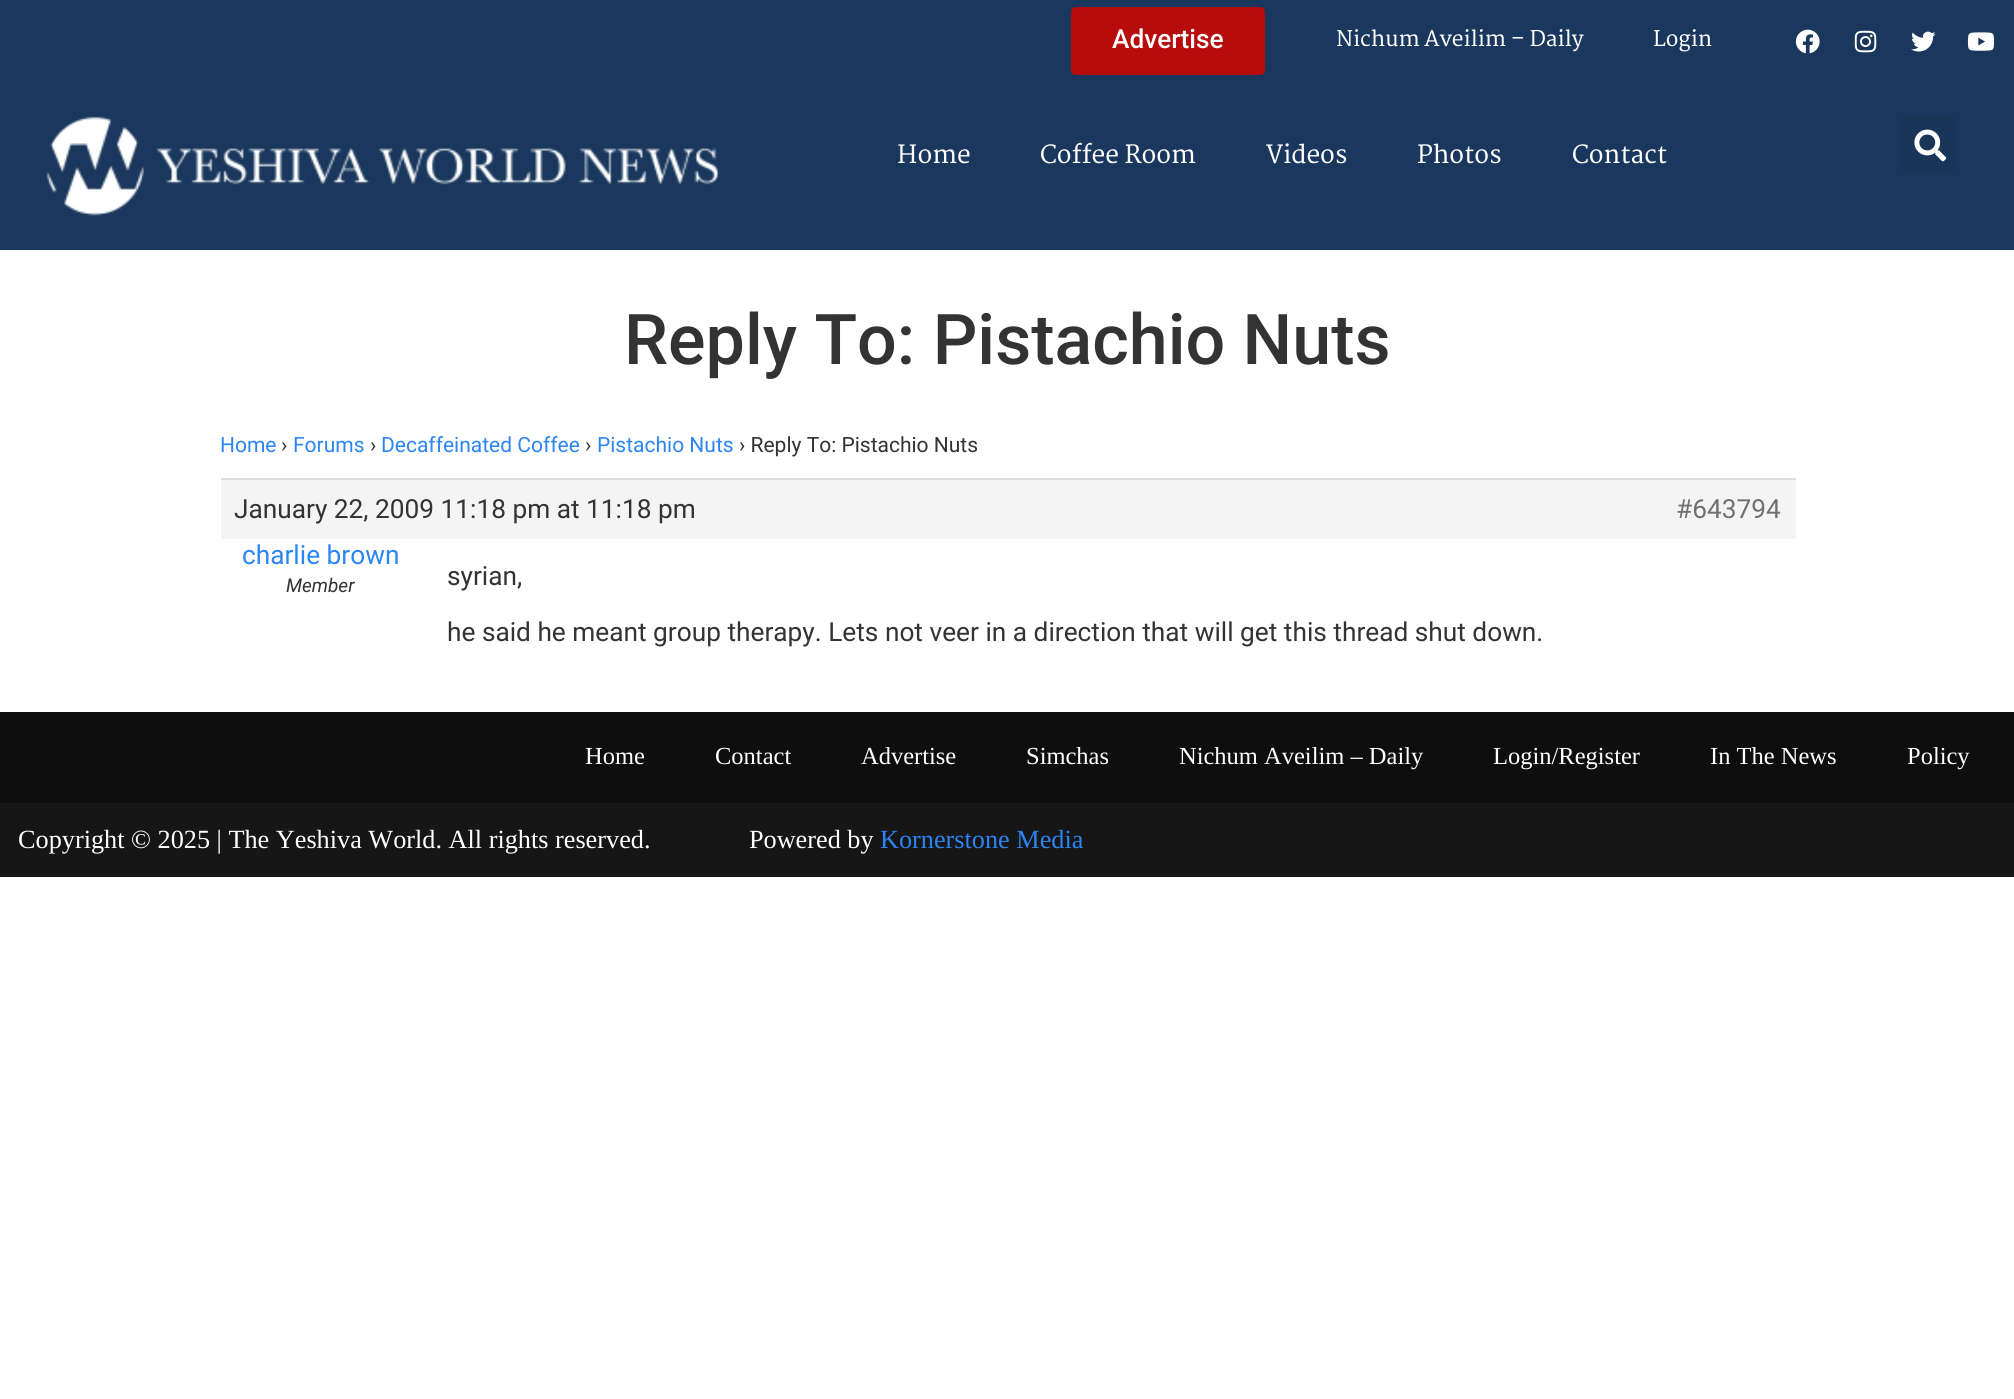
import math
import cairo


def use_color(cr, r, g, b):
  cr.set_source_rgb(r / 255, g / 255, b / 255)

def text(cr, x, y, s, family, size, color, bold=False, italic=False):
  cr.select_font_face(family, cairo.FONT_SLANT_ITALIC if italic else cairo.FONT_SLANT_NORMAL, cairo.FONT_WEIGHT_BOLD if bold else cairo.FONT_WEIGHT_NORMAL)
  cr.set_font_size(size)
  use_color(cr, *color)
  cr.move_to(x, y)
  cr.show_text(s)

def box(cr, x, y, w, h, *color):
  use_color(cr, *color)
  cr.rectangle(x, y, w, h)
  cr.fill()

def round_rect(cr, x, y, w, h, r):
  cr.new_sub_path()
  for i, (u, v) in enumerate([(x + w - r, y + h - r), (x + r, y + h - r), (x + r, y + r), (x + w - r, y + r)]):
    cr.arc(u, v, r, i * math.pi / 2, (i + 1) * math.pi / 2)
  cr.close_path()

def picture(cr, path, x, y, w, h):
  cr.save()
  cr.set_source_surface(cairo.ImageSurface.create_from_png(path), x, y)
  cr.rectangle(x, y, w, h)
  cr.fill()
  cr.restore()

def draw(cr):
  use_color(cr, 255, 255, 255)
  cr.paint()
  box(cr, 0, 0, 2014, 250, 26, 56, 93)
  use_color(cr, 184, 11, 11)
  round_rect(cr, 1071, 7, 194, 68, 5)
  cr.fill()
  picture(cr, "img_01.png", 1795, 29, 25, 25)
  picture(cr, "img_02.png", 1854, 30, 23, 23)
  picture(cr, "img_03.png", 1911, 31, 25, 21)
  picture(cr, "img_04.png", 1967, 32, 28, 19)
  picture(cr, "img_05.png", 46, 116, 674, 100)
  use_color(cr, 25, 53, 88)
  round_rect(cr, 1901, 116, 57, 57, 5)
  cr.fill()
  picture(cr, "img_06.png", 1914, 129, 33, 33)
  box(cr, 221, 480, 1575, 59, 244, 244, 244)
  box(cr, 221, 478, 1575, 2, 221, 221, 221)
  box(cr, 0, 712, 2014, 91, 14, 14, 14)
  box(cr, 0, 803, 2014, 74, 22, 22, 22)
  text(cr, 1112, 48, "Advertise", "Roboto Medium", 26.25, (255, 255, 255))
  text(cr, 1336, 46, "Nichum Aveilim – Daily", "Martel SemiBold", 21, (255, 255, 255))
  text(cr, 1653, 46, "Login", "Martel SemiBold", 21, (255, 255, 255))
  text(cr, 897, 163, "Home", "Martel SemiBold", 24.5, (255, 255, 255))
  text(cr, 1040, 163, "Coffee Room", "Martel SemiBold", 24.5, (255, 255, 255))
  text(cr, 1266, 163, "Videos", "Martel SemiBold", 24.5, (255, 255, 255))
  text(cr, 1417, 163, "Photos", "Martel SemiBold", 24.5, (255, 255, 255))
  text(cr, 1572, 163, "Contact", "Martel SemiBold", 24.5, (255, 255, 255))
  text(cr, 624, 364, "Reply To: Pistachio Nuts", "Roboto Medium", 70, (51, 51, 51))
  text(cr, 220, 452, "Home", "Roboto", 21, (43, 133, 244))
  text(cr, 281, 452, "›", "Roboto", 21, (51, 51, 51))
  text(cr, 293, 452, "Forums", "Roboto", 21, (43, 133, 244))
  text(cr, 370, 452, "›", "Roboto", 21, (51, 51, 51))
  text(cr, 381, 452, "Decaffeinated Coffee", "Roboto", 21, (43, 133, 244))
  text(cr, 585, 452, "›", "Roboto", 21, (51, 51, 51))
  text(cr, 597, 452, "Pistachio Nuts", "Roboto", 21, (43, 133, 244))
  text(cr, 739, 452, "› Reply To: Pistachio Nuts", "Roboto", 21, (51, 51, 51))
  text(cr, 234, 518, "January 22, 2009 11:18 pm at 11:18 pm", "Roboto", 26.25, (51, 51, 51))
  text(cr, 1676, 518, "#643794", "Roboto", 26.25, (112, 112, 112))
  text(cr, 242, 564, "charlie brown", "Roboto", 26.25, (43, 133, 244))
  text(cr, 286, 592, "Member", "Roboto", 19, (51, 51, 51), italic=True)
  text(cr, 447, 585, "syrian,", "Roboto", 26.25, (51, 51, 51))
  text(cr, 447, 641, "he said he meant group therapy. Lets not veer in a direction that will get this thread shut down.", "Roboto", 26.25, (51, 51, 51))
  text(cr, 585, 764, "Home", "Liberation Serif", 24.5, (255, 255, 255))
  text(cr, 715, 764, "Contact", "Liberation Serif", 24.5, (255, 255, 255))
  text(cr, 861, 764, "Advertise", "Liberation Serif", 24.5, (255, 255, 255))
  text(cr, 1026, 764, "Simchas", "Liberation Serif", 24.5, (255, 255, 255))
  text(cr, 1179, 764, "Nichum Aveilim – Daily", "Liberation Serif", 24.5, (255, 255, 255))
  text(cr, 1493, 764, "Login/Register", "Liberation Serif", 24.5, (255, 255, 255))
  text(cr, 1710, 764, "In The News", "Liberation Serif", 24.5, (255, 255, 255))
  text(cr, 1907, 764, "Policy", "Liberation Serif", 24.5, (255, 255, 255))
  text(cr, 18, 848, "Copyright © 2025 | The Yeshiva World. All rights reserved.               Powered by", "Liberation Serif", 26.25, (255, 255, 255))
  text(cr, 880, 848, "Kornerstone Media", "Liberation Serif", 26.25, (43, 133, 244))


surface = cairo.ImageSurface(cairo.FORMAT_RGB24, 2014, 1399)
cr = cairo.Context(surface)
options = cairo.FontOptions()
options.set_hint_metrics(cairo.HINT_METRICS_OFF)
options.set_hint_style(cairo.HINT_STYLE_NONE)
cr.set_font_options(options)
cr.set_miter_limit(4)
draw(cr)
surface.write_to_png("out.png")
